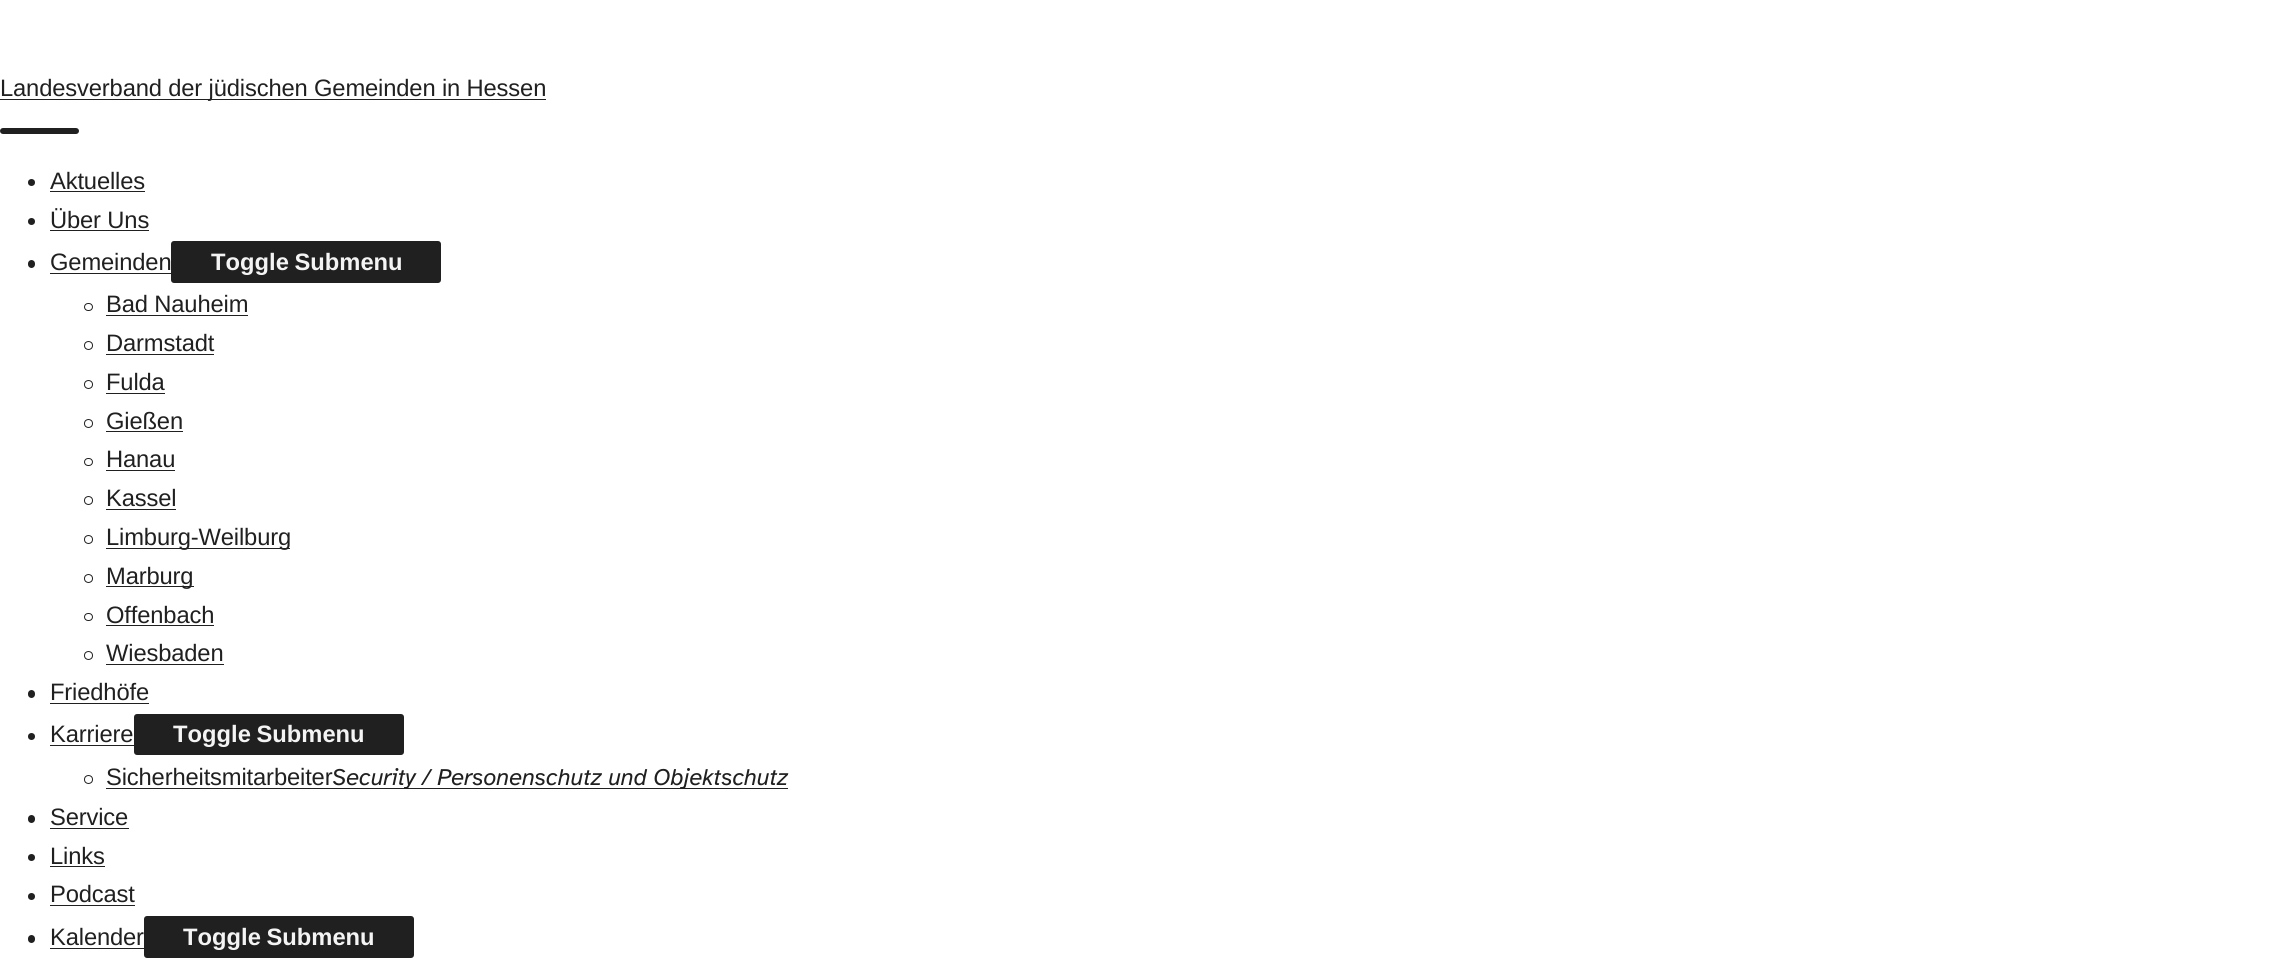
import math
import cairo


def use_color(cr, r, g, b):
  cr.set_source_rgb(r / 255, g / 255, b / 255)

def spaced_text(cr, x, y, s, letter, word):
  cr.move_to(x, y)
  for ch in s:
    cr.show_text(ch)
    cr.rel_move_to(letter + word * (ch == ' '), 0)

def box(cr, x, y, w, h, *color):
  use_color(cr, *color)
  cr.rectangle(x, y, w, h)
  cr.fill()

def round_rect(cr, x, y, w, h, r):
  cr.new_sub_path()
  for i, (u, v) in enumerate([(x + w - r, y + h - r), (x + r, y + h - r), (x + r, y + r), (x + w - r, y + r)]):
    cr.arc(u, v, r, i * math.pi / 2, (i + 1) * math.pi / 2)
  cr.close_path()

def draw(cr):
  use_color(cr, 255, 255, 255)
  cr.paint()
  box(cr, 0, 99, 546, 1, 32, 32, 32)
  round_rect(cr, 0, 128, 79, 6, 3)
  cr.fill()
  cr.arc(31.5, 182.5, 3.5, 0, 2 * math.pi)
  cr.fill()
  box(cr, 50, 191, 95, 1, 32, 32, 32)
  cr.arc(31.5, 221.5, 3.5, 0, 2 * math.pi)
  cr.fill()
  box(cr, 50, 230, 99, 1, 32, 32, 32)
  round_rect(cr, 28, 260, 7, 8, 3.5)
  cr.fill()
  box(cr, 50, 273, 121, 1, 32, 32, 32)
  round_rect(cr, 171, 241, 270, 42, 3)
  cr.fill()
  round_rect(cr, 84.5, 303.5, 8, 7, 3.5)
  cr.set_line_width(1)
  cr.stroke()
  box(cr, 106, 315, 142, 1, 32, 32, 32)
  cr.arc(88.5, 345.5, 4, 0, 2 * math.pi)
  cr.stroke()
  box(cr, 106, 354, 108, 1, 32, 32, 32)
  cr.arc(88.5, 384.5, 4, 0, 2 * math.pi)
  cr.stroke()
  box(cr, 106, 393, 59, 1, 32, 32, 32)
  cr.arc(88.5, 423.5, 4, 0, 2 * math.pi)
  cr.stroke()
  box(cr, 106, 431, 77, 1, 32, 32, 32)
  round_rect(cr, 84.5, 458.5, 8, 7, 3.5)
  cr.stroke()
  box(cr, 106, 470, 69, 1, 32, 32, 32)
  cr.arc(88.5, 500.5, 4, 0, 2 * math.pi)
  cr.stroke()
  box(cr, 106, 509, 70, 1, 32, 32, 32)
  cr.arc(88.5, 539.5, 4, 0, 2 * math.pi)
  cr.stroke()
  box(cr, 106, 548, 184, 1, 32, 32, 32)
  cr.arc(88.5, 578.5, 4, 0, 2 * math.pi)
  cr.stroke()
  box(cr, 106, 586, 88, 1, 32, 32, 32)
  round_rect(cr, 84.5, 613.5, 8, 7, 3.5)
  cr.stroke()
  box(cr, 106, 625, 108, 1, 32, 32, 32)
  cr.arc(88.5, 655.5, 4, 0, 2 * math.pi)
  cr.stroke()
  box(cr, 106, 664, 118, 1, 32, 32, 32)
  round_rect(cr, 28, 690, 7, 8, 3.5)
  cr.fill()
  box(cr, 50, 703, 99, 1, 32, 32, 32)
  cr.arc(31.5, 736.5, 3.5, 0, 2 * math.pi)
  cr.fill()
  box(cr, 50, 745, 84, 1, 32, 32, 32)
  round_rect(cr, 134, 714, 270, 41, 3)
  cr.fill()
  cr.arc(88.5, 779.5, 4, 0, 2 * math.pi)
  cr.stroke()
  box(cr, 106, 788, 682, 1, 32, 32, 32)
  round_rect(cr, 28, 815, 7, 8, 3.5)
  cr.fill()
  box(cr, 50, 828, 79, 1, 32, 32, 32)
  cr.arc(31.5, 857.5, 3.5, 0, 2 * math.pi)
  cr.fill()
  box(cr, 50, 866, 55, 1, 32, 32, 32)
  cr.arc(31.5, 896.5, 3.5, 0, 2 * math.pi)
  cr.fill()
  box(cr, 50, 905, 85, 1, 32, 32, 32)
  round_rect(cr, 28, 935, 7, 8, 3.5)
  cr.fill()
  box(cr, 50, 948, 94, 1, 32, 32, 32)
  round_rect(cr, 144, 916, 270, 42, 3)
  cr.fill()
  cr.select_font_face("Liberation Sans")
  cr.set_font_size(23.75)
  spaced_text(cr, 0, 96, "Landesverband der jüdischen Gemeinden in Hessen", -0.15, 0)
  spaced_text(cr, 50, 189, "Aktuelles", -0.15, 0)
  spaced_text(cr, 50, 228, "Über Uns", -0.15, 0)
  spaced_text(cr, 50, 270, "Gemeinden", -0.15, 0)
  cr.select_font_face("Liberation Sans", cairo.FONT_SLANT_NORMAL, cairo.FONT_WEIGHT_BOLD)
  use_color(cr, 244, 244, 244)
  spaced_text(cr, 211, 270, "Toggle Submenu", 0, -1)
  cr.select_font_face("Liberation Sans")
  use_color(cr, 32, 32, 32)
  spaced_text(cr, 106, 312, "Bad Nauheim", -0.15, 0)
  spaced_text(cr, 106, 351, "Darmstadt", -0.15, 0)
  spaced_text(cr, 106, 390, "Fulda", -0.15, 0)
  spaced_text(cr, 106, 429, "Gießen", -0.15, 0)
  spaced_text(cr, 106, 467, "Hanau", -0.15, 0)
  spaced_text(cr, 106, 506, "Kassel", -0.15, 0)
  spaced_text(cr, 106, 545, "Limburg-Weilburg", -0.15, 0)
  spaced_text(cr, 106, 584, "Marburg", -0.15, 0)
  spaced_text(cr, 106, 623, "Offenbach", -0.15, 0)
  spaced_text(cr, 106, 661, "Wiesbaden", -0.15, 0)
  spaced_text(cr, 50, 700, "Friedhöfe", -0.15, 0)
  spaced_text(cr, 50, 742, "Karriere", -0.15, 0)
  cr.select_font_face("Liberation Sans", cairo.FONT_SLANT_NORMAL, cairo.FONT_WEIGHT_BOLD)
  use_color(cr, 244, 244, 244)
  spaced_text(cr, 173, 742, "Toggle Submenu", 0, -1)
  cr.select_font_face("Liberation Sans")
  use_color(cr, 32, 32, 32)
  spaced_text(cr, 106, 785, "Sicherheitsmitarbeiter", -0.15, 0)
  cr.select_font_face("Atkinson Hyperlegible", cairo.FONT_SLANT_ITALIC)
  spaced_text(cr, 332, 785, "Security / Personenschutz und Objektschutz", -0.15, 0)
  cr.select_font_face("Liberation Sans")
  spaced_text(cr, 50, 825, "Service", -0.15, 0)
  spaced_text(cr, 50, 864, "Links", -0.15, 0)
  spaced_text(cr, 50, 902, "Podcast", -0.15, 0)
  spaced_text(cr, 50, 945, "Kalender", -0.15, 0)
  cr.select_font_face("Liberation Sans", cairo.FONT_SLANT_NORMAL, cairo.FONT_WEIGHT_BOLD)
  use_color(cr, 244, 244, 244)
  spaced_text(cr, 183, 945, "Toggle Submenu", 0, -1)


surface = cairo.ImageSurface(cairo.FORMAT_RGB24, 2295, 966)
cr = cairo.Context(surface)
options = cairo.FontOptions()
options.set_hint_metrics(cairo.HINT_METRICS_OFF)
options.set_hint_style(cairo.HINT_STYLE_NONE)
cr.set_font_options(options)
cr.set_miter_limit(4)
draw(cr)
surface.write_to_png("out.png")
